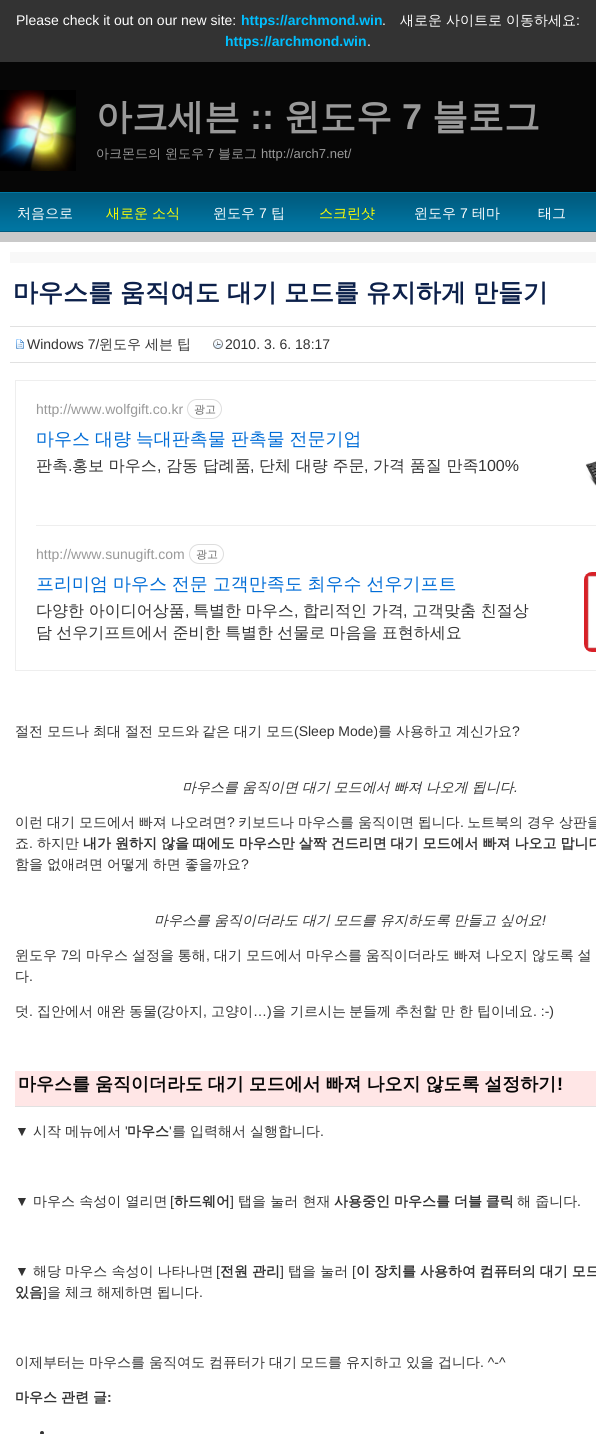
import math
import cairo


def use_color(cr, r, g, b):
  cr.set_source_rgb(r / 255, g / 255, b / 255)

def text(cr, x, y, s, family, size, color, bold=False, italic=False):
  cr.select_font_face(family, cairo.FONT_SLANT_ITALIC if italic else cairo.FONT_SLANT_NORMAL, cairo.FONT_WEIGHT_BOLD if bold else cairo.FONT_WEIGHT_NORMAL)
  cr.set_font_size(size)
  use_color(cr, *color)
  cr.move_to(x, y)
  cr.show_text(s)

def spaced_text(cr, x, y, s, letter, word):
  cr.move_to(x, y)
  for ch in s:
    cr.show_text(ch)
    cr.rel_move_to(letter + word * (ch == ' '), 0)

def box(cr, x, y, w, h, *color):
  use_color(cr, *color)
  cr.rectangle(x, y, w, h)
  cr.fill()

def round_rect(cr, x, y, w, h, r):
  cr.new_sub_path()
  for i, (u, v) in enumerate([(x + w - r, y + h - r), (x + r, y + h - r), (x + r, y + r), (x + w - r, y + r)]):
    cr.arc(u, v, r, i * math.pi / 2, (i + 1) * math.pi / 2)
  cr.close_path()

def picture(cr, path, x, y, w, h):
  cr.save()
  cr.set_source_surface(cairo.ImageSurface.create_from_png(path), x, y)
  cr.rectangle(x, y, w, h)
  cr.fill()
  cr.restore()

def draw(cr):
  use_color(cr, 201, 201, 201)
  cr.paint()
  box(cr, 0, 0, 596, 62, 51, 51, 51)
  box(cr, 0, 62, 596, 130, 6, 6, 6)
  picture(cr, "img_01.png", 0, 90, 76, 81)
  picture(cr, "img_02.png", 0, 192, 596, 40)
  box(cr, 0, 242, 596, 1192, 255, 255, 255)
  box(cr, 10, 252, 586, 11, 248, 248, 248)
  box(cr, 10, 326, 586, 1, 225, 225, 225)
  box(cr, 10, 362, 586, 1, 225, 225, 225)
  picture(cr, "img_03.png", 16, 339, 8, 10)
  picture(cr, "img_04.png", 213, 339, 10, 10)
  cr.rectangle(15.5, 380.5, 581, 290)
  use_color(cr, 238, 238, 238)
  cr.set_line_width(1)
  cr.stroke()
  round_rect(cr, 187.5, 399.5, 34, 19, 9.5)
  use_color(cr, 221, 221, 221)
  cr.stroke()
  picture(cr, "img_05.png", 585, 461, 11, 25)
  box(cr, 36, 525, 560, 1, 238, 238, 238)
  round_rect(cr, 189.5, 544.5, 34, 19, 9.5)
  use_color(cr, 221, 221, 221)
  cr.stroke()
  picture(cr, "img_06.png", 584, 572, 12, 80)
  box(cr, 15, 1071, 581, 35, 255, 230, 230)
  box(cr, 15, 1106, 581, 1, 225, 225, 225)
  use_color(cr, 51, 51, 51)
  cr.arc(42, 1433, 2, 0, 2 * math.pi)
  cr.fill()
  text(cr, 16, 25, "Please check it out on our new site:", "Liberation Sans", 14, (255, 255, 255))
  text(cr, 241, 25, "https://archmond.win", "Liberation Sans", 14, (0, 191, 255), bold=True)
  text(cr, 382, 25, ".", "Liberation Sans", 14, (255, 255, 255))
  cr.select_font_face("WenQuanYi Zen Hei Medium")
  spaced_text(cr, 400, 25, "새로운 사이트로 이동하세요", 0, -0.25)
  text(cr, 576, 25, ":", "Liberation Sans", 14, (255, 255, 255))
  text(cr, 225, 46, "https://archmond.win", "Liberation Sans", 14, (0, 191, 255), bold=True)
  text(cr, 367, 46, ".", "Liberation Sans", 14, (255, 255, 255))
  text(cr, 96, 129, "아크세븐", "WenQuanYi Zen Hei", 36, (153, 153, 153), bold=True)
  text(cr, 250, 129, "::", "Liberation Sans", 36, (153, 153, 153), bold=True)
  text(cr, 284, 129, "윈도우", "WenQuanYi Zen Hei", 36, (153, 153, 153), bold=True)
  text(cr, 402, 129, "7", "Liberation Sans", 36, (153, 153, 153), bold=True)
  text(cr, 432, 129, "블로그", "WenQuanYi Zen Hei", 36, (153, 153, 153), bold=True)
  text(cr, 96, 158, "아크몬드의 윈도우", "WenQuanYi Zen Hei Medium", 13, (153, 153, 153))
  text(cr, 207, 158, "7", "Liberation Sans", 13, (153, 153, 153))
  text(cr, 218, 158, "블로그", "WenQuanYi Zen Hei Medium", 13, (153, 153, 153))
  text(cr, 261, 158, "http://arch7.net/", "Liberation Sans", 13, (153, 153, 153))
  text(cr, 17, 218, "처음으로", "WenQuanYi Zen Hei Medium", 14, (255, 255, 255))
  use_color(cr, 255, 255, 0)
  spaced_text(cr, 106, 218, "새로운 소식", 0, -0.25)
  text(cr, 213, 218, "윈도우", "WenQuanYi Zen Hei Medium", 14, (255, 255, 255))
  text(cr, 259, 218, "7", "Liberation Sans", 14, (255, 255, 255))
  text(cr, 271, 218, "팁", "WenQuanYi Zen Hei Medium", 14, (255, 255, 255))
  text(cr, 319, 218, "스크린샷", "WenQuanYi Zen Hei Medium", 14, (255, 255, 0))
  text(cr, 414, 218, "윈도우", "WenQuanYi Zen Hei Medium", 14, (255, 255, 255))
  text(cr, 460, 218, "7", "Liberation Sans", 14, (255, 255, 255))
  text(cr, 472, 218, "테마", "WenQuanYi Zen Hei Medium", 14, (255, 255, 255))
  text(cr, 538, 218, "태그", "WenQuanYi Zen Hei Medium", 14, (255, 255, 255))
  cr.select_font_face("WenQuanYi Zen Hei", cairo.FONT_SLANT_NORMAL, cairo.FONT_WEIGHT_BOLD)
  cr.set_font_size(25)
  use_color(cr, 12, 32, 74)
  spaced_text(cr, 13, 301, "마우스를 움직여도 대기 모드를 유지하게 만들기", 0, -0.5)
  text(cr, 27, 349, "Windows 7/", "Liberation Sans", 14, (51, 51, 51))
  text(cr, 99, 349, "윈도우", "WenQuanYi Zen Hei Medium", 14, (51, 51, 51))
  text(cr, 145, 349, "세븐", "WenQuanYi Zen Hei Medium", 14, (51, 51, 51))
  text(cr, 177, 349, "팁", "WenQuanYi Zen Hei Medium", 14, (51, 51, 51))
  text(cr, 225, 349, "2010. 3. 6. 18:17", "Liberation Sans", 14, (51, 51, 51))
  text(cr, 36, 414, "http://www.wolfgift.co.kr", "Liberation Sans", 14, (153, 153, 153))
  text(cr, 194, 413, "광고", "WenQuanYi Zen Hei Medium", 11, (102, 102, 102))
  cr.set_font_size(18)
  use_color(cr, 1, 109, 215)
  spaced_text(cr, 36, 445, "마우스 대량 늑대판촉물 판촉물 전문기업", 0, -0.5)
  text(cr, 36, 471, "판촉", "WenQuanYi Zen Hei Medium", 16, (51, 51, 51))
  text(cr, 68, 471, ".", "Liberation Sans", 16, (51, 51, 51))
  text(cr, 72, 471, "홍보 마우스", "WenQuanYi Zen Hei Medium", 16, (51, 51, 51))
  text(cr, 157, 471, ",", "Liberation Sans", 16, (51, 51, 51))
  text(cr, 166, 471, "감동 답례품", "WenQuanYi Zen Hei Medium", 16, (51, 51, 51))
  text(cr, 250, 471, ",", "Liberation Sans", 16, (51, 51, 51))
  text(cr, 259, 471, "단체 대량 주문", "WenQuanYi Zen Hei Medium", 16, (51, 51, 51))
  text(cr, 364, 471, ",", "Liberation Sans", 16, (51, 51, 51))
  text(cr, 373, 471, "가격 품질 만족", "WenQuanYi Zen Hei Medium", 16, (51, 51, 51))
  text(cr, 478, 471, "100%", "Liberation Sans", 16, (51, 51, 51))
  text(cr, 36, 559, "http://www.sunugift.com", "Liberation Sans", 14, (153, 153, 153))
  text(cr, 196, 558, "광고", "WenQuanYi Zen Hei Medium", 11, (102, 102, 102))
  cr.set_font_size(18)
  use_color(cr, 1, 109, 215)
  spaced_text(cr, 36, 590, "프리미엄 마우스 전문 고객만족도 최우수 선우기프트", 0, -0.5)
  text(cr, 36, 616, "다양한 아이디어상품", "WenQuanYi Zen Hei Medium", 16, (51, 51, 51))
  text(cr, 185, 616, ",", "Liberation Sans", 16, (51, 51, 51))
  text(cr, 193, 616, "특별한 마우스", "WenQuanYi Zen Hei Medium", 16, (51, 51, 51))
  text(cr, 294, 616, ",", "Liberation Sans", 16, (51, 51, 51))
  text(cr, 303, 616, "합리적인 가격", "WenQuanYi Zen Hei Medium", 16, (51, 51, 51))
  text(cr, 403, 616, ",", "Liberation Sans", 16, (51, 51, 51))
  text(cr, 412, 616, "고객맞춤 친절상", "WenQuanYi Zen Hei Medium", 16, (51, 51, 51))
  spaced_text(cr, 36, 638, "담 선우기프트에서 준비한 특별한 선물로 마음을 표현하세요", 0, -0.5)
  text(cr, 15, 736, "절전", "WenQuanYi Zen Hei Medium", 14, (51, 51, 51))
  text(cr, 47, 736, "모드나", "WenQuanYi Zen Hei Medium", 14, (51, 51, 51))
  text(cr, 93, 736, "최대", "WenQuanYi Zen Hei Medium", 14, (51, 51, 51))
  text(cr, 125, 736, "절전", "WenQuanYi Zen Hei Medium", 14, (51, 51, 51))
  text(cr, 157, 736, "모드와", "WenQuanYi Zen Hei Medium", 14, (51, 51, 51))
  text(cr, 202, 736, "같은", "WenQuanYi Zen Hei Medium", 14, (51, 51, 51))
  text(cr, 234, 736, "대기", "WenQuanYi Zen Hei Medium", 14, (51, 51, 51))
  text(cr, 266, 736, "모드", "WenQuanYi Zen Hei Medium", 14, (51, 51, 51))
  text(cr, 294, 736, "(Sleep Mode)", "Liberation Sans", 14, (51, 51, 51))
  text(cr, 378, 736, "를", "WenQuanYi Zen Hei Medium", 14, (51, 51, 51))
  text(cr, 396, 736, "사용하고", "WenQuanYi Zen Hei Medium", 14, (51, 51, 51))
  text(cr, 456, 736, "계신가요", "WenQuanYi Zen Hei Medium", 14, (51, 51, 51))
  text(cr, 512, 736, "?", "Liberation Sans", 14, (51, 51, 51))
  cr.select_font_face("WenQuanYi Zen Hei Medium", cairo.FONT_SLANT_ITALIC)
  spaced_text(cr, 182, 792, "마우스를 움직이면 대기 모드에서 빠져 나오게 됩니다", 0, -0.25)
  text(cr, 514, 792, ".", "Liberation Sans", 14, (51, 51, 51), italic=True)
  cr.select_font_face("WenQuanYi Zen Hei Medium")
  spaced_text(cr, 15, 827, "이런 대기 모드에서 빠져 나오려면", 0, -0.25)
  text(cr, 227, 827, "?", "Liberation Sans", 14, (51, 51, 51))
  cr.select_font_face("WenQuanYi Zen Hei Medium")
  spaced_text(cr, 238, 827, "키보드나 마우스를 움직이면 됩니다", 0, -0.25)
  text(cr, 460, 827, ".", "Liberation Sans", 14, (51, 51, 51))
  cr.select_font_face("WenQuanYi Zen Hei Medium")
  spaced_text(cr, 467, 827, "노트북의 경우 상판을", 0, -0.25)
  text(cr, 15, 848, "죠", "WenQuanYi Zen Hei Medium", 14, (51, 51, 51))
  text(cr, 29, 848, ".", "Liberation Sans", 14, (51, 51, 51))
  text(cr, 37, 848, "하지만", "WenQuanYi Zen Hei Medium", 14, (51, 51, 51))
  cr.select_font_face("WenQuanYi Zen Hei", cairo.FONT_SLANT_NORMAL, cairo.FONT_WEIGHT_BOLD)
  spaced_text(cr, 83, 848, "내가 원하지 않을 때에도 마우스만 살짝 건드리면 대기 모드에서 빠져 나오고 맙니다", 0, -0.25)
  cr.select_font_face("WenQuanYi Zen Hei Medium")
  spaced_text(cr, 15, 869, "함을 없애려면 어떻게 하면 좋을까요", 0, -0.25)
  text(cr, 241, 869, "?", "Liberation Sans", 14, (51, 51, 51))
  cr.select_font_face("WenQuanYi Zen Hei Medium", cairo.FONT_SLANT_ITALIC)
  spaced_text(cr, 154, 925, "마우스를 움직이더라도 대기 모드를 유지하도록 만들고 싶어요", 0, -0.25)
  text(cr, 542, 925, "!", "Liberation Sans", 14, (51, 51, 51), italic=True)
  text(cr, 15, 960, "윈도우", "WenQuanYi Zen Hei Medium", 14, (51, 51, 51))
  text(cr, 61, 960, "7", "Liberation Sans", 14, (51, 51, 51))
  cr.select_font_face("WenQuanYi Zen Hei Medium")
  spaced_text(cr, 68, 960, "의 마우스 설정을 통해", 0, -0.25)
  text(cr, 206, 960, ",", "Liberation Sans", 14, (51, 51, 51))
  cr.select_font_face("WenQuanYi Zen Hei Medium")
  spaced_text(cr, 214, 960, "대기 모드에서 마우스를 움직이더라도 빠져 나오지 않도록 설", 0, -0.25)
  text(cr, 15, 981, "다", "WenQuanYi Zen Hei Medium", 14, (51, 51, 51))
  text(cr, 29, 981, ".", "Liberation Sans", 14, (51, 51, 51))
  text(cr, 15, 1016, "덧", "WenQuanYi Zen Hei Medium", 14, (51, 51, 51))
  text(cr, 29, 1016, ".", "Liberation Sans", 14, (51, 51, 51))
  text(cr, 37, 1016, "집안에서", "WenQuanYi Zen Hei Medium", 14, (51, 51, 51))
  text(cr, 97, 1016, "애완", "WenQuanYi Zen Hei Medium", 14, (51, 51, 51))
  text(cr, 129, 1016, "동물", "WenQuanYi Zen Hei Medium", 14, (51, 51, 51))
  text(cr, 157, 1016, "(", "Liberation Sans", 14, (51, 51, 51))
  text(cr, 161, 1016, "강아지", "WenQuanYi Zen Hei Medium", 14, (51, 51, 51))
  text(cr, 203, 1016, ",", "Liberation Sans", 14, (51, 51, 51))
  text(cr, 211, 1016, "고양이", "WenQuanYi Zen Hei Medium", 14, (51, 51, 51))
  text(cr, 253, 1016, "…)", "Liberation Sans", 14, (51, 51, 51))
  text(cr, 272, 1016, "을", "WenQuanYi Zen Hei Medium", 14, (51, 51, 51))
  text(cr, 290, 1016, "기르시는", "WenQuanYi Zen Hei Medium", 14, (51, 51, 51))
  text(cr, 349, 1016, "분들께", "WenQuanYi Zen Hei Medium", 14, (51, 51, 51))
  text(cr, 395, 1016, "추천할", "WenQuanYi Zen Hei Medium", 14, (51, 51, 51))
  text(cr, 441, 1016, "만", "WenQuanYi Zen Hei Medium", 14, (51, 51, 51))
  text(cr, 459, 1016, "한", "WenQuanYi Zen Hei Medium", 14, (51, 51, 51))
  text(cr, 477, 1016, "팁이네요", "WenQuanYi Zen Hei Medium", 14, (51, 51, 51))
  text(cr, 533, 1016, ". :-)", "Liberation Sans", 14, (51, 51, 51))
  cr.select_font_face("WenQuanYi Zen Hei", cairo.FONT_SLANT_NORMAL, cairo.FONT_WEIGHT_BOLD)
  cr.set_font_size(18)
  use_color(cr, 6, 6, 6)
  spaced_text(cr, 18, 1090, "마우스를 움직이더라도 대기 모드에서 빠져 나오지 않도록 설정하기", 0, -0.5)
  text(cr, 557, 1090, "!", "Liberation Sans", 18, (6, 6, 6), bold=True)
  text(cr, 15, 1136, "▼", "Liberation Sans", 14, (51, 51, 51))
  text(cr, 33, 1136, "시작 메뉴에서", "WenQuanYi Zen Hei Medium", 14, (51, 51, 51))
  text(cr, 125, 1136, "'", "Liberation Sans", 14, (51, 51, 51))
  text(cr, 127, 1136, "마우스", "WenQuanYi Zen Hei", 14, (51, 51, 51), bold=True)
  text(cr, 169, 1136, "'", "Liberation Sans", 14, (51, 51, 51))
  cr.select_font_face("WenQuanYi Zen Hei Medium")
  spaced_text(cr, 172, 1136, "를 입력해서 실행합니다", 0, -0.25)
  text(cr, 320, 1136, ".", "Liberation Sans", 14, (51, 51, 51))
  text(cr, 15, 1206, "▼", "Liberation Sans", 14, (51, 51, 51))
  text(cr, 33, 1206, "마우스 속성이 열리면", "WenQuanYi Zen Hei Medium", 14, (51, 51, 51))
  text(cr, 170, 1206, "[", "Liberation Sans", 14, (51, 51, 51))
  text(cr, 174, 1206, "하드웨어", "WenQuanYi Zen Hei", 14, (51, 51, 51), bold=True)
  text(cr, 230, 1206, "]", "Liberation Sans", 14, (51, 51, 51))
  text(cr, 238, 1206, "탭을 눌러 현재", "WenQuanYi Zen Hei Medium", 14, (51, 51, 51))
  cr.select_font_face("WenQuanYi Zen Hei", cairo.FONT_SLANT_NORMAL, cairo.FONT_WEIGHT_BOLD)
  spaced_text(cr, 334, 1206, "사용중인 마우스를 더블 클릭", 0, -0.25)
  text(cr, 517, 1206, "해 줍니다", "WenQuanYi Zen Hei Medium", 14, (51, 51, 51))
  text(cr, 577, 1206, ".", "Liberation Sans", 14, (51, 51, 51))
  text(cr, 15, 1276, "▼", "Liberation Sans", 14, (51, 51, 51))
  text(cr, 33, 1276, "해당 마우스 속성이 나타나면", "WenQuanYi Zen Hei Medium", 14, (51, 51, 51))
  text(cr, 216, 1276, "[", "Liberation Sans", 14, (51, 51, 51))
  cr.select_font_face("WenQuanYi Zen Hei", cairo.FONT_SLANT_NORMAL, cairo.FONT_WEIGHT_BOLD)
  spaced_text(cr, 220, 1276, "전원 관리", 0, -0.25)
  text(cr, 280, 1276, "]", "Liberation Sans", 14, (51, 51, 51))
  text(cr, 288, 1276, "탭을 눌러", "WenQuanYi Zen Hei Medium", 14, (51, 51, 51))
  text(cr, 352, 1276, "[", "Liberation Sans", 14, (51, 51, 51))
  cr.select_font_face("WenQuanYi Zen Hei", cairo.FONT_SLANT_NORMAL, cairo.FONT_WEIGHT_BOLD)
  spaced_text(cr, 356, 1276, "이 장치를 사용하여 컴퓨터의 대기 모드", 0, -0.25)
  text(cr, 15, 1297, "있음", "WenQuanYi Zen Hei", 14, (51, 51, 51), bold=True)
  text(cr, 43, 1297, "]", "Liberation Sans", 14, (51, 51, 51))
  cr.select_font_face("WenQuanYi Zen Hei Medium")
  spaced_text(cr, 47, 1297, "을 체크 해제하면 됩니다", 0, -0.25)
  text(cr, 199, 1297, ".", "Liberation Sans", 14, (51, 51, 51))
  text(cr, 15, 1367, "이제부터는", "WenQuanYi Zen Hei Medium", 14, (51, 51, 51))
  text(cr, 89, 1367, "마우스를", "WenQuanYi Zen Hei Medium", 14, (51, 51, 51))
  text(cr, 149, 1367, "움직여도", "WenQuanYi Zen Hei Medium", 14, (51, 51, 51))
  text(cr, 209, 1367, "컴퓨터가", "WenQuanYi Zen Hei Medium", 14, (51, 51, 51))
  text(cr, 269, 1367, "대기", "WenQuanYi Zen Hei Medium", 14, (51, 51, 51))
  text(cr, 300, 1367, "모드를", "WenQuanYi Zen Hei Medium", 14, (51, 51, 51))
  text(cr, 346, 1367, "유지하고", "WenQuanYi Zen Hei Medium", 14, (51, 51, 51))
  text(cr, 406, 1367, "있을", "WenQuanYi Zen Hei Medium", 14, (51, 51, 51))
  text(cr, 438, 1367, "겁니다", "WenQuanYi Zen Hei Medium", 14, (51, 51, 51))
  text(cr, 480, 1367, ". ^-^", "Liberation Sans", 14, (51, 51, 51))
  cr.select_font_face("WenQuanYi Zen Hei", cairo.FONT_SLANT_NORMAL, cairo.FONT_WEIGHT_BOLD)
  spaced_text(cr, 15, 1402, "마우스 관련 글", 0, -0.25)
  text(cr, 107, 1402, ":", "Liberation Sans", 14, (51, 51, 51), bold=True)


surface = cairo.ImageSurface(cairo.FORMAT_RGB24, 596, 1434)
cr = cairo.Context(surface)
options = cairo.FontOptions()
options.set_hint_metrics(cairo.HINT_METRICS_OFF)
options.set_hint_style(cairo.HINT_STYLE_NONE)
cr.set_font_options(options)
cr.set_miter_limit(4)
draw(cr)
surface.write_to_png("out.png")
